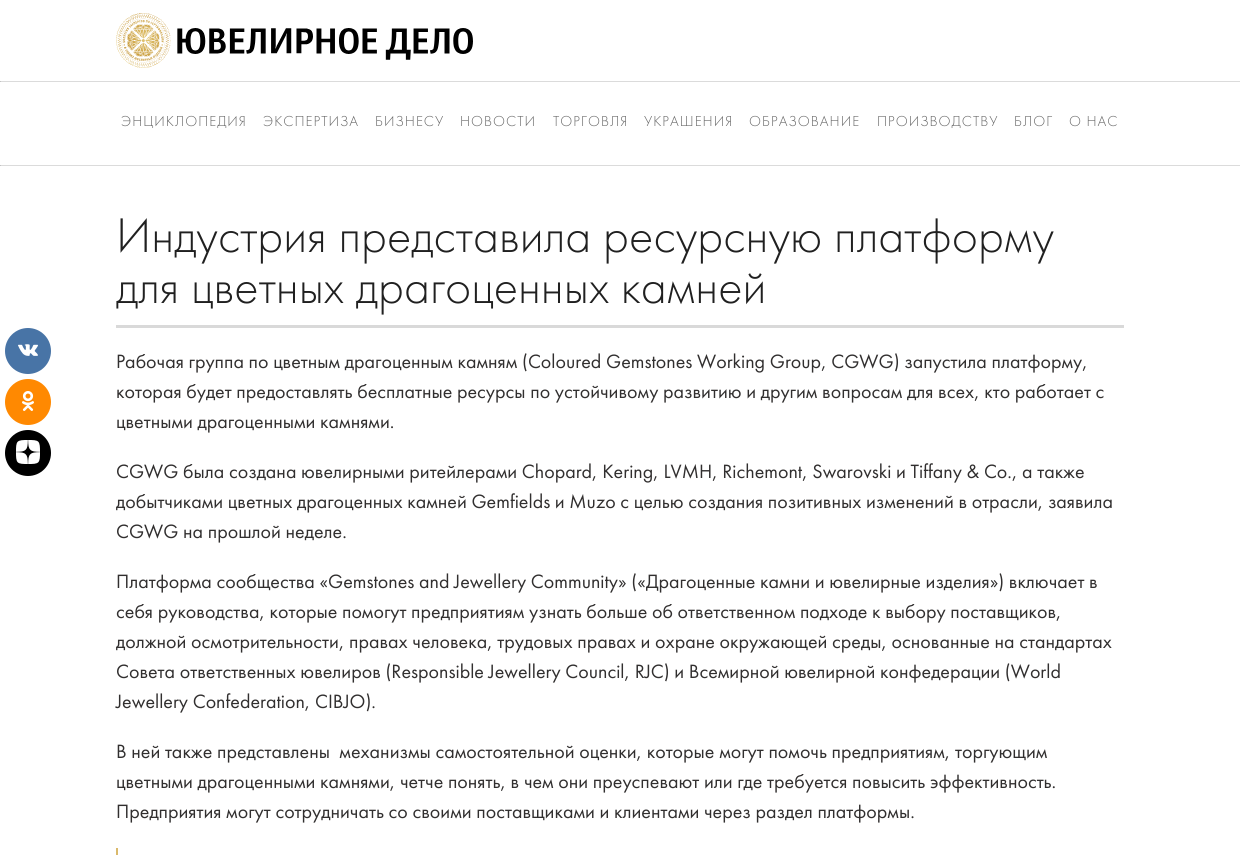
import math
import cairo


def use_color(cr, r, g, b):
  cr.set_source_rgb(r / 255, g / 255, b / 255)

def text(cr, x, y, s, family, size, color, bold=False, italic=False):
  cr.select_font_face(family, cairo.FONT_SLANT_ITALIC if italic else cairo.FONT_SLANT_NORMAL, cairo.FONT_WEIGHT_BOLD if bold else cairo.FONT_WEIGHT_NORMAL)
  cr.set_font_size(size)
  use_color(cr, *color)
  cr.move_to(x, y)
  cr.show_text(s)

def spaced_text(cr, x, y, s, letter, word):
  cr.move_to(x, y)
  for ch in s:
    cr.show_text(ch)
    cr.rel_move_to(letter + word * (ch == ' '), 0)

def box(cr, x, y, w, h, *color):
  use_color(cr, *color)
  cr.rectangle(x, y, w, h)
  cr.fill()

def picture(cr, path, x, y, w, h):
  cr.save()
  cr.set_source_surface(cairo.ImageSurface.create_from_png(path), x, y)
  cr.rectangle(x, y, w, h)
  cr.fill()
  cr.restore()

def draw(cr):
  use_color(cr, 255, 255, 255)
  cr.paint()
  picture(cr, "img_01.png", 116, 13, 357, 55)
  use_color(cr, 219, 219, 219)
  cr.new_path()
  cr.move_to(0, 81)
  cr.line_to(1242, 81)
  cr.line_to(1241, 82)
  cr.line_to(1, 82)
  cr.close_path()
  cr.fill()
  use_color(cr, 159, 159, 159)
  cr.new_path()
  cr.move_to(0, 82)
  cr.line_to(0, 81)
  cr.line_to(1, 82)
  cr.close_path()
  cr.fill()
  use_color(cr, 72, 116, 166)
  cr.arc(28, 351, 23, 0, 2 * math.pi)
  cr.fill()
  picture(cr, "img_02.png", 18, 344, 20, 12)
  use_color(cr, 255, 137, 1)
  cr.arc(28, 402, 23, 0, 2 * math.pi)
  cr.fill()
  picture(cr, "img_03.png", 22, 391, 12, 20)
  use_color(cr, 0, 0, 0)
  cr.arc(28, 453, 23, 0, 2 * math.pi)
  cr.fill()
  picture(cr, "img_04.png", 16, 440, 24, 24)
  use_color(cr, 219, 219, 219)
  cr.new_path()
  cr.move_to(0, 165)
  cr.line_to(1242, 165)
  cr.line_to(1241, 166)
  cr.line_to(1, 166)
  cr.close_path()
  cr.fill()
  use_color(cr, 159, 159, 159)
  cr.new_path()
  cr.move_to(0, 166)
  cr.line_to(0, 165)
  cr.line_to(1, 166)
  cr.close_path()
  cr.fill()
  box(cr, 116, 325, 1008, 3, 217, 217, 217)
  box(cr, 116, 848, 2, 7, 218, 185, 107)
  cr.select_font_face("Futura PT Light")
  cr.set_font_size(15)
  use_color(cr, 102, 102, 102)
  spaced_text(cr, 121, 126, "ЭНЦИКЛОПЕДИЯ", 1, 0)
  spaced_text(cr, 263, 126, "ЭКСПЕРТИЗА", 1, 0)
  spaced_text(cr, 375, 126, "БИЗНЕСУ", 1, 0)
  spaced_text(cr, 460, 126, "НОВОСТИ", 1, 0)
  spaced_text(cr, 553, 126, "ТОРГОВЛЯ", 1, 0)
  spaced_text(cr, 644, 126, "УКРАШЕНИЯ", 1, 0)
  spaced_text(cr, 749, 126, "ОБРАЗОВАНИЕ", 1, 0)
  spaced_text(cr, 877, 126, "ПРОИЗВОДСТВУ", 1, 0)
  spaced_text(cr, 1014, 126, "БЛОГ", 1, 0)
  spaced_text(cr, 1069, 126, "О НАС", 1, 0)
  text(cr, 116, 252, "Индустрия представила ресурсную платформу", "Futura PT Light", 50.4, (32, 32, 32))
  text(cr, 116, 303, "для цветных драгоценных камней", "Futura PT Light", 50.4, (32, 32, 32))
  text(cr, 116, 368, "Рабочая группа по цветным драгоценным камням (Coloured Gemstones Working Group, CGWG) запустила платформу,", "Futura PT", 20, (49, 47, 47))
  text(cr, 116, 398, "которая будет предоставлять бесплатные ресурсы по устойчивому развитию и другим вопросам для всех, кто работает с", "Futura PT", 20, (49, 47, 47))
  text(cr, 116, 428, "цветными драгоценными камнями.", "Futura PT", 20, (49, 47, 47))
  text(cr, 116, 478, "CGWG была создана ювелирными ритейлерами Chopard, Kering, LVMH, Richemont, Swarovski и Tiffany & Co., а также", "Futura PT", 20, (49, 47, 47))
  text(cr, 116, 508, "добытчиками цветных драгоценных камней Gemfields и Muzo с целью создания позитивных изменений в отрасли, заявила", "Futura PT", 20, (49, 47, 47))
  text(cr, 116, 538, "CGWG на прошлой неделе.", "Futura PT", 20, (49, 47, 47))
  text(cr, 116, 588, "Платформа сообщества «Gemstones and Jewellery Community» («Драгоценные камни и ювелирные изделия») включает в", "Futura PT", 20, (49, 47, 47))
  text(cr, 116, 618, "себя руководства, которые помогут предприятиям узнать больше об ответственном подходе к выбору поставщиков,", "Futura PT", 20, (49, 47, 47))
  text(cr, 116, 648, "должной осмотрительности, правах человека, трудовых правах и охране окружающей среды, основанные на стандартах", "Futura PT", 20, (49, 47, 47))
  text(cr, 116, 678, "Совета ответственных ювелиров (Responsible Jewellery Council, RJC) и Всемирной ювелирной конфедерации (World", "Futura PT", 20, (49, 47, 47))
  text(cr, 116, 708, "Jewellery Confederation, CIBJO).", "Futura PT", 20, (49, 47, 47))
  text(cr, 116, 758, "В ней также представлены  механизмы самостоятельной оценки, которые могут помочь предприятиям, торгующим", "Futura PT", 20, (49, 47, 47))
  text(cr, 116, 788, "цветными драгоценными камнями, четче понять, в чем они преуспевают или где требуется повысить эффективность.", "Futura PT", 20, (49, 47, 47))
  text(cr, 116, 818, "Предприятия могут сотрудничать со своими поставщиками и клиентами через раздел платформы.", "Futura PT", 20, (49, 47, 47))


surface = cairo.ImageSurface(cairo.FORMAT_RGB24, 1240, 855)
cr = cairo.Context(surface)
options = cairo.FontOptions()
options.set_hint_metrics(cairo.HINT_METRICS_OFF)
options.set_hint_style(cairo.HINT_STYLE_NONE)
cr.set_font_options(options)
cr.set_miter_limit(4)
draw(cr)
surface.write_to_png("out.png")
